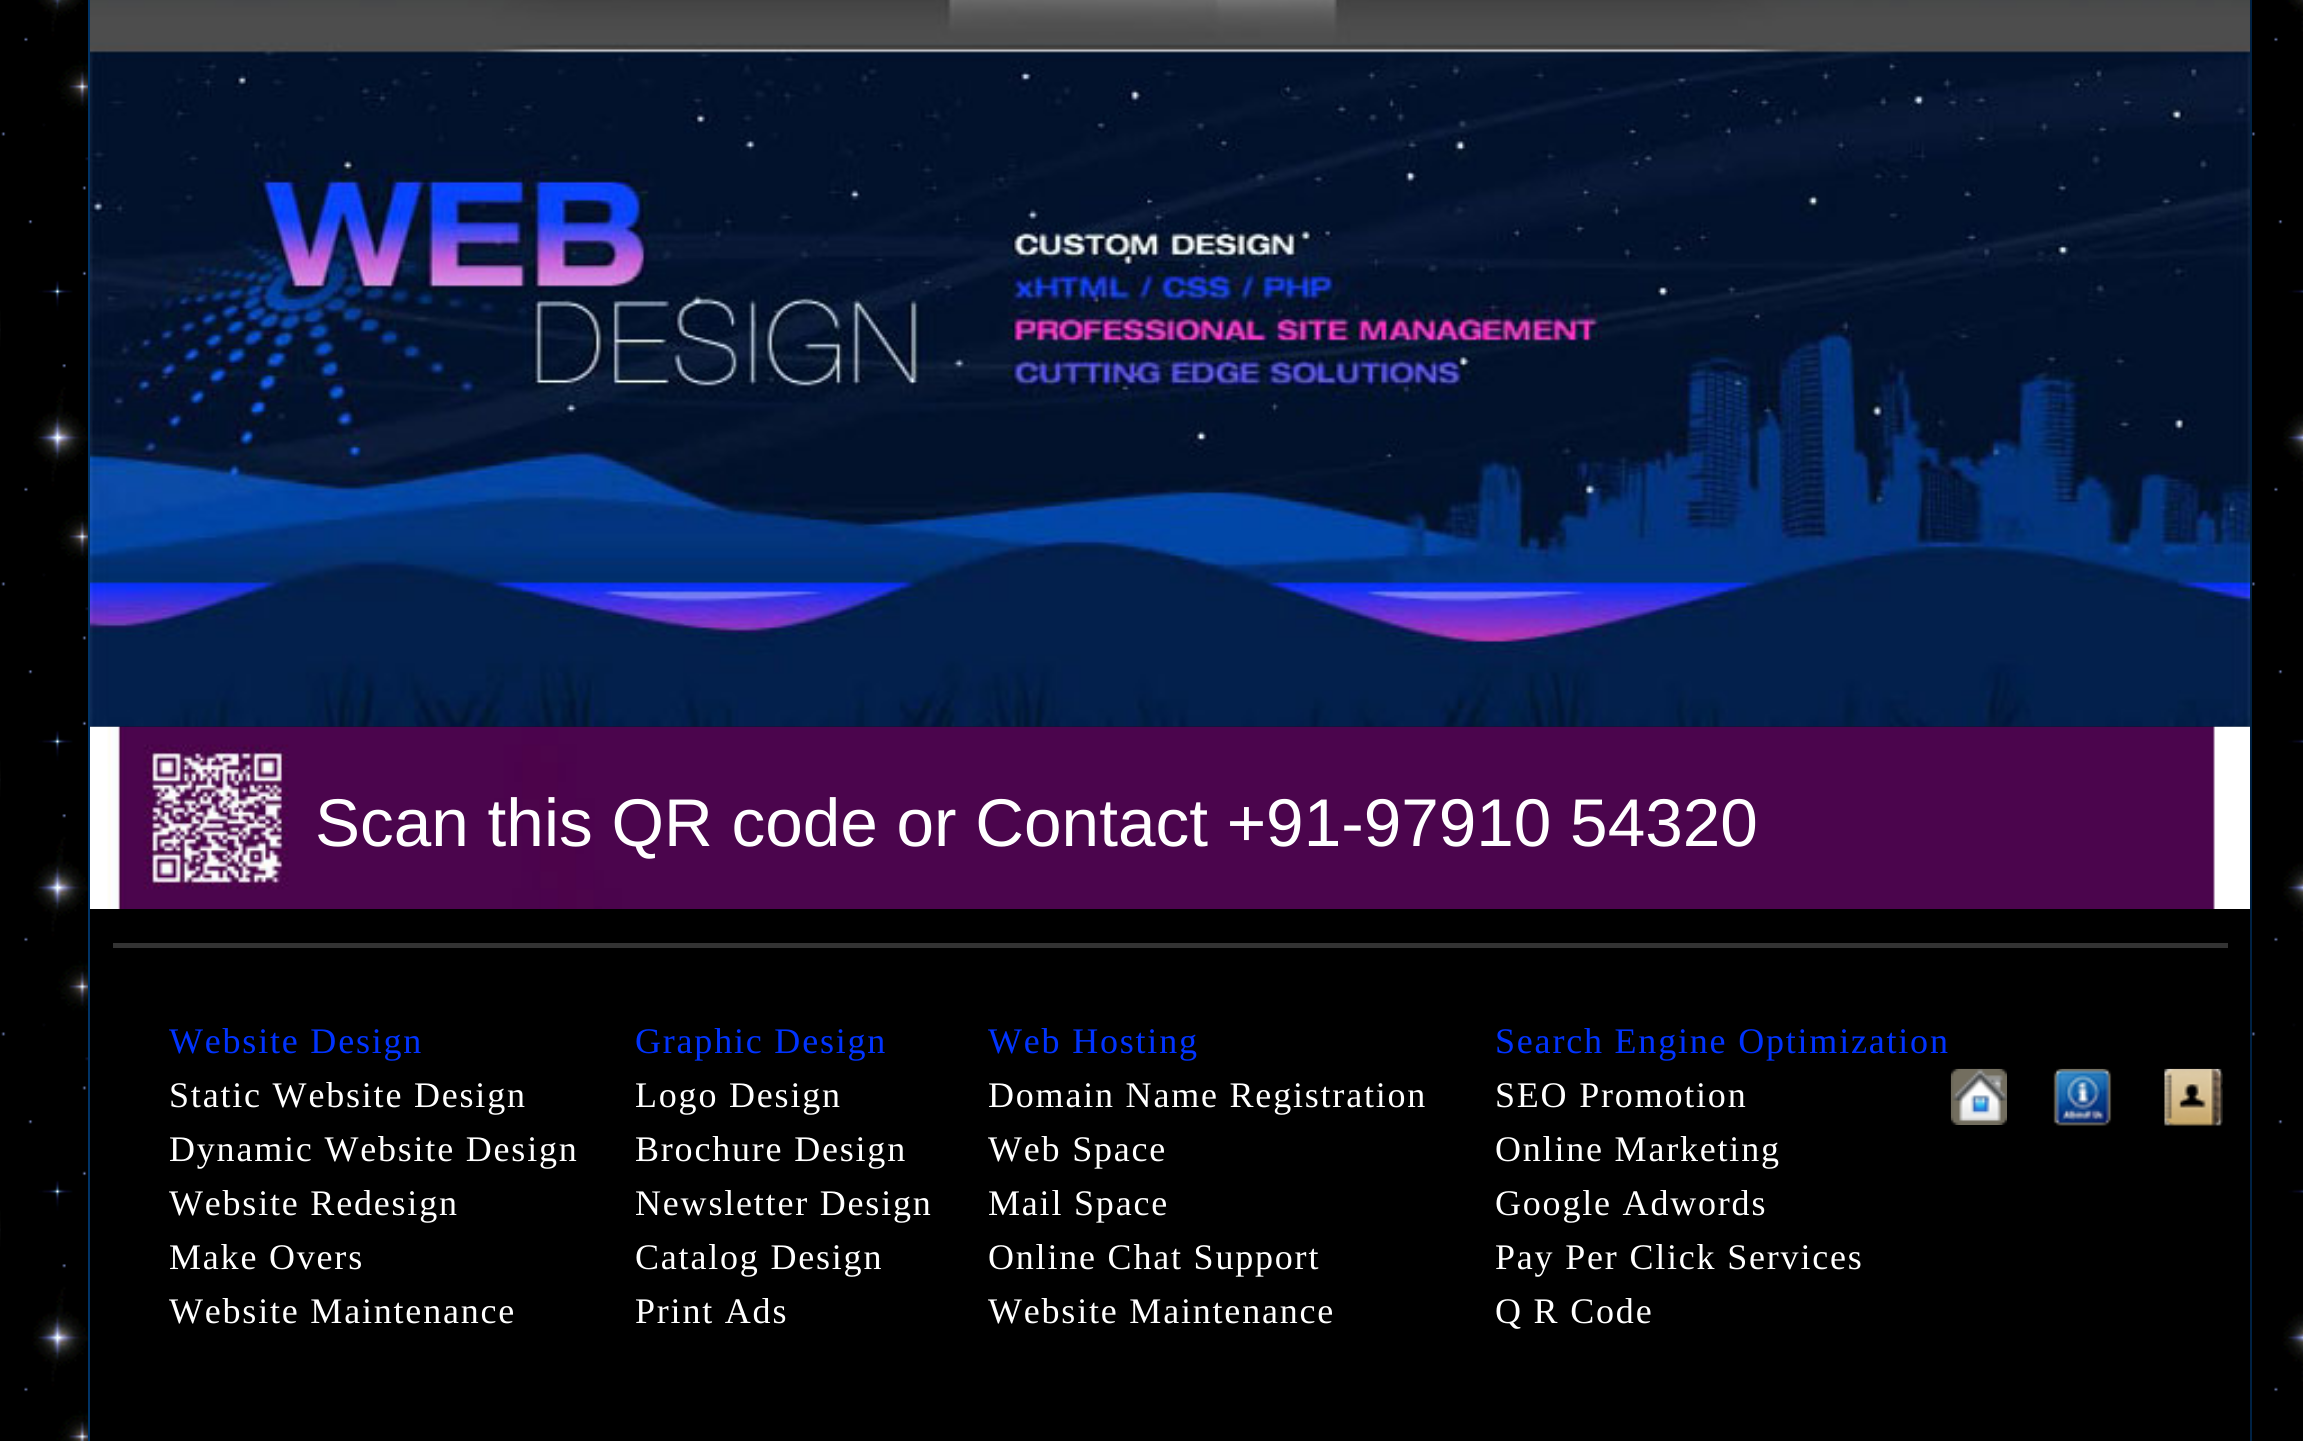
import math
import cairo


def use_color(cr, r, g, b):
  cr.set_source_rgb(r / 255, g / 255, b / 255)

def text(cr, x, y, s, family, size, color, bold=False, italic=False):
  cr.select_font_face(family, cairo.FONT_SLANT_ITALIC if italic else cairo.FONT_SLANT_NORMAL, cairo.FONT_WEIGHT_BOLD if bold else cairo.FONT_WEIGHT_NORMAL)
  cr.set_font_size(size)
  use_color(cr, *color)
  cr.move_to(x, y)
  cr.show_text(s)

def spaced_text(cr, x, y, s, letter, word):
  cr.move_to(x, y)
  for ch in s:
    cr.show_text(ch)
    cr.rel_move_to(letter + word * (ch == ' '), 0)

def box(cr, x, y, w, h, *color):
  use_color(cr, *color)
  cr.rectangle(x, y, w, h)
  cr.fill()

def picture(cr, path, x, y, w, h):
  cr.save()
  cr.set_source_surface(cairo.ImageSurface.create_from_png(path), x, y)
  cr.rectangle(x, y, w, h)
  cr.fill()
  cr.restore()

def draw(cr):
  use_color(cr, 255, 255, 255)
  cr.paint()
  picture(cr, "img_01.png", 0, 0, 2303, 1441)
  box(cr, 90, 726, 2160, 715, 0, 0, 0)
  box(cr, 2250, 0, 2, 1441, 0, 34, 68)
  box(cr, 88, 0, 2, 1441, 0, 51, 102)
  picture(cr, "img_02.png", 90, 0, 2160, 727)
  picture(cr, "img_03.png", 90, 726, 2160, 183)
  box(cr, 113, 943, 2115, 5, 51, 51, 51)
  picture(cr, "img_04.png", 1950, 1068, 57, 57)
  picture(cr, "img_05.png", 2053, 1068, 59, 58)
  picture(cr, "img_06.png", 2164, 1068, 59, 58)
  text(cr, 315, 846, "Scan this QR code or Contact +91-97910 54320", "Liberation Sans", 67.5, (255, 255, 255))
  cr.select_font_face("Liberation Serif")
  cr.set_font_size(36)
  use_color(cr, 0, 51, 255)
  spaced_text(cr, 169, 1053, "Website Design", 1.8, 0)
  use_color(cr, 255, 255, 255)
  spaced_text(cr, 169, 1107, "Static Website Design", 1.8, 0)
  spaced_text(cr, 169, 1161, "Dynamic Website Design", 1.8, 0)
  spaced_text(cr, 169, 1215, "Website Redesign", 1.8, 0)
  spaced_text(cr, 169, 1269, "Make Overs", 1.8, 0)
  spaced_text(cr, 169, 1323, "Website Maintenance", 1.8, 0)
  use_color(cr, 0, 51, 255)
  spaced_text(cr, 635, 1053, "Graphic Design", 1.8, 0)
  use_color(cr, 255, 255, 255)
  spaced_text(cr, 635, 1107, "Logo Design", 1.8, 0)
  spaced_text(cr, 635, 1161, "Brochure Design", 1.8, 0)
  spaced_text(cr, 635, 1215, "Newsletter Design", 1.8, 0)
  spaced_text(cr, 635, 1269, "Catalog Design", 1.8, 0)
  spaced_text(cr, 635, 1323, "Print Ads", 1.8, 0)
  use_color(cr, 0, 51, 255)
  spaced_text(cr, 988, 1053, "Web Hosting", 1.8, 0)
  use_color(cr, 255, 255, 255)
  spaced_text(cr, 988, 1107, "Domain Name Registration", 1.8, 0)
  spaced_text(cr, 988, 1161, "Web Space", 1.8, 0)
  spaced_text(cr, 988, 1215, "Mail Space", 1.8, 0)
  spaced_text(cr, 988, 1269, "Online Chat Support", 1.8, 0)
  spaced_text(cr, 988, 1323, "Website Maintenance", 1.8, 0)
  use_color(cr, 0, 51, 255)
  spaced_text(cr, 1495, 1053, "Search Engine Optimization", 1.8, 0)
  use_color(cr, 255, 255, 255)
  spaced_text(cr, 1495, 1107, "SEO Promotion", 1.8, 0)
  spaced_text(cr, 1495, 1161, "Online Marketing", 1.8, 0)
  spaced_text(cr, 1495, 1215, "Google Adwords", 1.8, 0)
  spaced_text(cr, 1495, 1269, "Pay Per Click Services", 1.8, 0)
  spaced_text(cr, 1495, 1323, "Q R Code", 1.8, 0)


surface = cairo.ImageSurface(cairo.FORMAT_RGB24, 2303, 1441)
cr = cairo.Context(surface)
options = cairo.FontOptions()
options.set_hint_metrics(cairo.HINT_METRICS_OFF)
options.set_hint_style(cairo.HINT_STYLE_NONE)
cr.set_font_options(options)
cr.set_miter_limit(4)
draw(cr)
surface.write_to_png("out.png")
